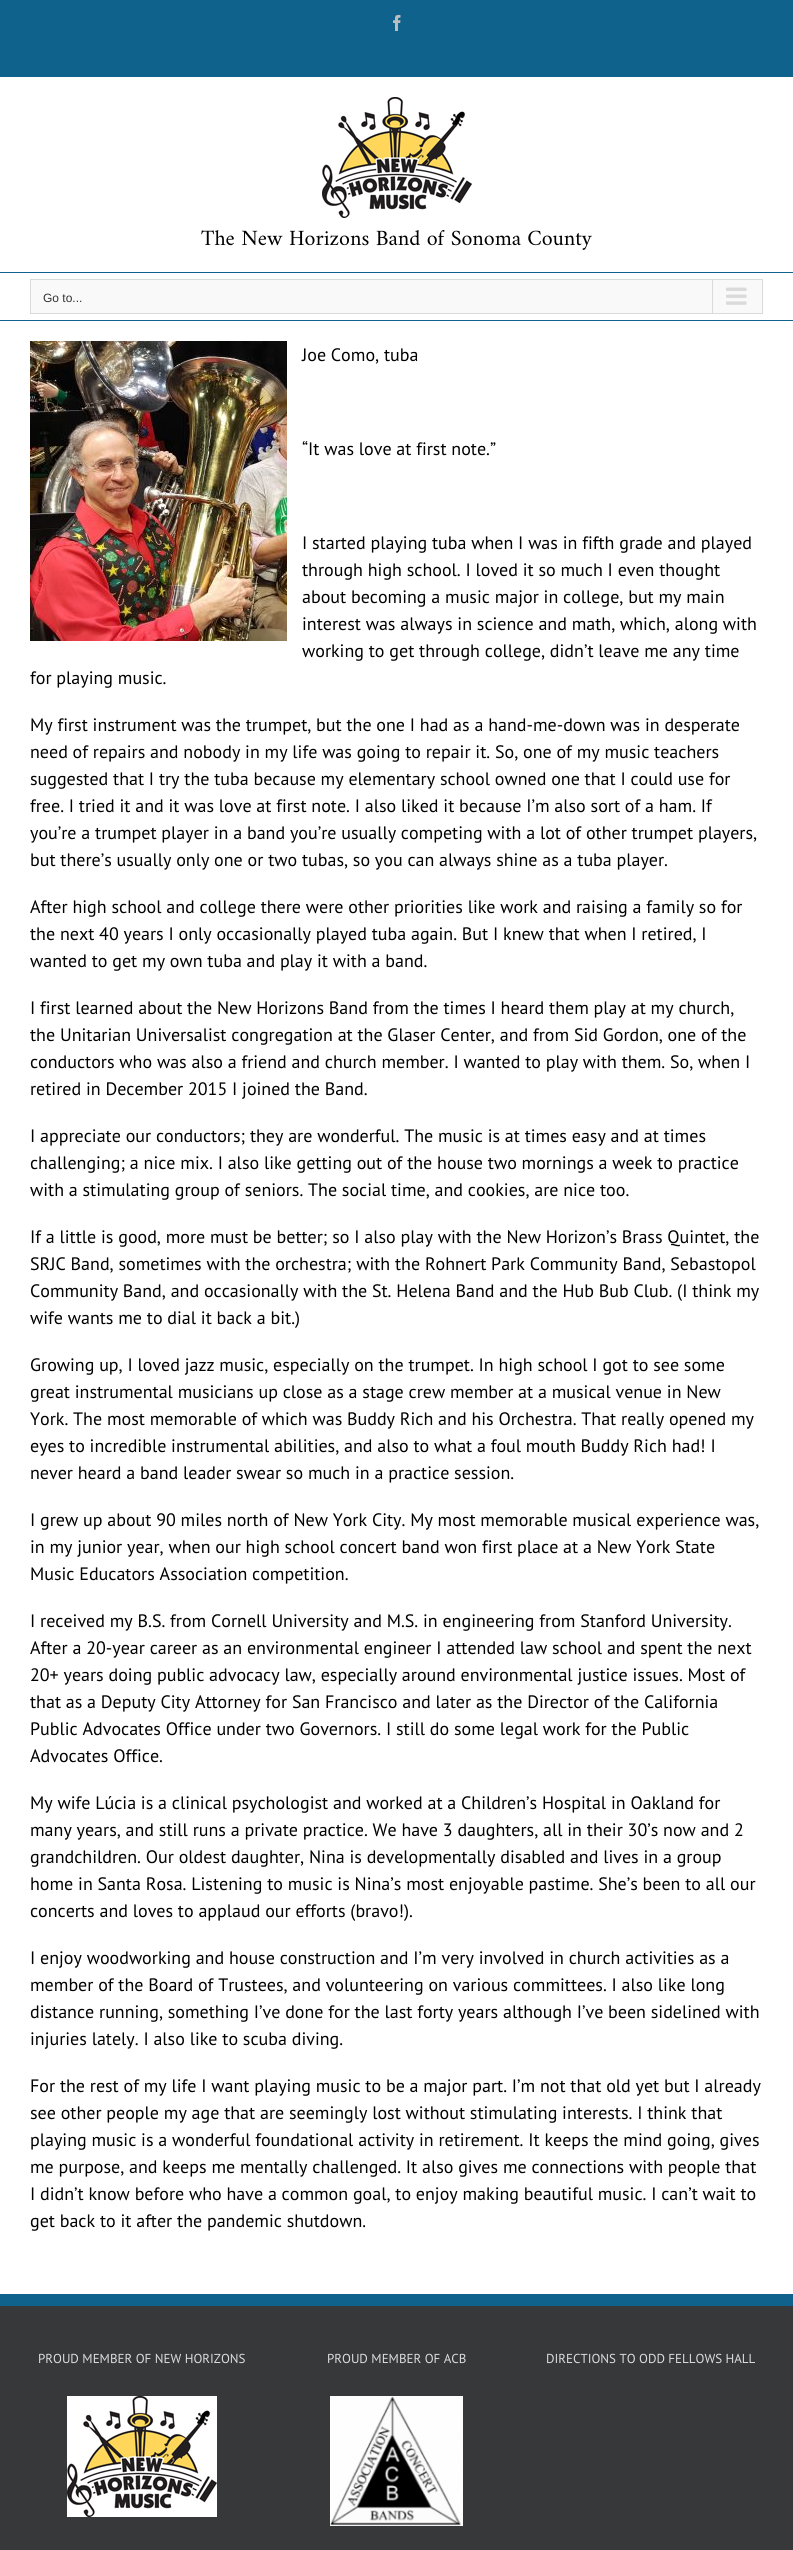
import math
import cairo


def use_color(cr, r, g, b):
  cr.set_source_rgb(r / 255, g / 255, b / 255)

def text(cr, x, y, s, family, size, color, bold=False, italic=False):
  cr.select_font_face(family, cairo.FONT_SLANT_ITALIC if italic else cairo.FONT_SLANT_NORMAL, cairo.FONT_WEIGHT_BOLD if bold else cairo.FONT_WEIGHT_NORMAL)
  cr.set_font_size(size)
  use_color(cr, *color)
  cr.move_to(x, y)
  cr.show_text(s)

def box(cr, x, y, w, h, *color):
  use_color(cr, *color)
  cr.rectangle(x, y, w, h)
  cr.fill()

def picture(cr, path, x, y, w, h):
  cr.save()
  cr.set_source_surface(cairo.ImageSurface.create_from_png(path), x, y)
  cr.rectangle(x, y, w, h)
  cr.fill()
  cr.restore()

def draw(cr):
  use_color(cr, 255, 255, 255)
  cr.paint()
  box(cr, 0, 0, 793, 77, 15, 98, 140)
  picture(cr, "img_01.png", 393, 15, 8, 16)
  box(cr, 0, 272, 793, 1, 15, 98, 140)
  picture(cr, "img_02.png", 322, 97, 150, 121)
  box(cr, 0, 320, 793, 1, 15, 98, 140)
  use_color(cr, 249, 249, 249)
  cr.rectangle(30.5, 279.5, 732, 34)
  cr.fill_preserve()
  use_color(cr, 218, 218, 218)
  cr.set_line_width(1)
  cr.stroke()
  box(cr, 712, 280, 1, 33, 218, 218, 218)
  picture(cr, "img_03.png", 726, 287, 21, 18)
  picture(cr, "img_04.png", 30, 341, 257, 300)
  box(cr, 0, 2306, 793, 244, 54, 56, 57)
  box(cr, 0, 2294, 793, 12, 15, 98, 140)
  picture(cr, "img_02.png", 67, 2396, 150, 121)
  picture(cr, "img_05.png", 330, 2396, 133, 130)
  text(cr, 201, 245, "The New Horizons Band of Sonoma County", "Amiri", 22, (0, 0, 0))
  text(cr, 43, 302, "Go to...", "Liberation Sans", 12, (51, 51, 51))
  text(cr, 302, 361, "Joe Como, tuba", "PT Sans", 18, (0, 0, 0))
  text(cr, 302, 455, "“It was love at first note.”", "PT Sans", 18, (0, 0, 0))
  text(cr, 302, 549, "I started playing tuba when I was in fifth grade and played", "PT Sans", 18, (0, 0, 0))
  text(cr, 302, 576, "through high school. I loved it so much I even thought", "PT Sans", 18, (0, 0, 0))
  text(cr, 302, 603, "about becoming a music major in college, but my main", "PT Sans", 18, (0, 0, 0))
  text(cr, 302, 630, "interest was always in science and math, which, along with", "PT Sans", 18, (0, 0, 0))
  text(cr, 302, 657, "working to get through college, didn’t leave me any time", "PT Sans", 18, (0, 0, 0))
  text(cr, 30, 684, "for playing music.", "PT Sans", 18, (0, 0, 0))
  text(cr, 30, 731, "My first instrument was the trumpet, but the one I had as a hand-me-down was in desperate", "PT Sans", 18, (0, 0, 0))
  text(cr, 30, 758, "need of repairs and nobody in my life was going to repair it. So, one of my music teachers", "PT Sans", 18, (0, 0, 0))
  text(cr, 30, 785, "suggested that I try the tuba because my elementary school owned one that I could use for", "PT Sans", 18, (0, 0, 0))
  text(cr, 30, 812, "free. I tried it and it was love at first note. I also liked it because I’m also sort of a ham. If", "PT Sans", 18, (0, 0, 0))
  text(cr, 30, 839, "you’re a trumpet player in a band you’re usually competing with a lot of other trumpet players,", "PT Sans", 18, (0, 0, 0))
  text(cr, 30, 866, "but there’s usually only one or two tubas, so you can always shine as a tuba player.", "PT Sans", 18, (0, 0, 0))
  text(cr, 30, 913, "After high school and college there were other priorities like work and raising a family so for", "PT Sans", 18, (0, 0, 0))
  text(cr, 30, 940, "the next 40 years I only occasionally played tuba again. But I knew that when I retired, I", "PT Sans", 18, (0, 0, 0))
  text(cr, 30, 967, "wanted to get my own tuba and play it with a band.", "PT Sans", 18, (0, 0, 0))
  text(cr, 30, 1014, "I first learned about the New Horizons Band from the times I heard them play at my church,", "PT Sans", 18, (0, 0, 0))
  text(cr, 30, 1041, "the Unitarian Universalist congregation at the Glaser Center, and from Sid Gordon, one of the", "PT Sans", 18, (0, 0, 0))
  text(cr, 30, 1068, "conductors who was also a friend and church member. I wanted to play with them. So, when I", "PT Sans", 18, (0, 0, 0))
  text(cr, 30, 1095, "retired in December 2015 I joined the Band.", "PT Sans", 18, (0, 0, 0))
  text(cr, 30, 1142, "I appreciate our conductors; they are wonderful. The music is at times easy and at times", "PT Sans", 18, (0, 0, 0))
  text(cr, 30, 1169, "challenging; a nice mix. I also like getting out of the house two mornings a week to practice", "PT Sans", 18, (0, 0, 0))
  text(cr, 30, 1196, "with a stimulating group of seniors. The social time, and cookies, are nice too.", "PT Sans", 18, (0, 0, 0))
  text(cr, 30, 1243, "If a little is good, more must be better; so I also play with the New Horizon’s Brass Quintet, the", "PT Sans", 18, (0, 0, 0))
  text(cr, 30, 1270, "SRJC Band, sometimes with the orchestra; with the Rohnert Park Community Band, Sebastopol", "PT Sans", 18, (0, 0, 0))
  text(cr, 30, 1297, "Community Band, and occasionally with the St. Helena Band and the Hub Bub Club. (I think my", "PT Sans", 18, (0, 0, 0))
  text(cr, 30, 1324, "wife wants me to dial it back a bit.)", "PT Sans", 18, (0, 0, 0))
  text(cr, 30, 1371, "Growing up, I loved jazz music, especially on the trumpet. In high school I got to see some", "PT Sans", 18, (0, 0, 0))
  text(cr, 30, 1398, "great instrumental musicians up close as a stage crew member at a musical venue in New", "PT Sans", 18, (0, 0, 0))
  text(cr, 30, 1425, "York. The most memorable of which was Buddy Rich and his Orchestra. That really opened my", "PT Sans", 18, (0, 0, 0))
  text(cr, 30, 1452, "eyes to incredible instrumental abilities, and also to what a foul mouth Buddy Rich had! I", "PT Sans", 18, (0, 0, 0))
  text(cr, 30, 1479, "never heard a band leader swear so much in a practice session.", "PT Sans", 18, (0, 0, 0))
  text(cr, 30, 1526, "I grew up about 90 miles north of New York City. My most memorable musical experience was,", "PT Sans", 18, (0, 0, 0))
  text(cr, 30, 1553, "in my junior year, when our high school concert band won first place at a New York State", "PT Sans", 18, (0, 0, 0))
  text(cr, 30, 1580, "Music Educators Association competition.", "PT Sans", 18, (0, 0, 0))
  text(cr, 30, 1627, "I received my B.S. from Cornell University and M.S. in engineering from Stanford University.", "PT Sans", 18, (0, 0, 0))
  text(cr, 30, 1654, "After a 20-year career as an environmental engineer I attended law school and spent the next", "PT Sans", 18, (0, 0, 0))
  text(cr, 30, 1681, "20+ years doing public advocacy law, especially around environmental justice issues. Most of", "PT Sans", 18, (0, 0, 0))
  text(cr, 30, 1708, "that as a Deputy City Attorney for San Francisco and later as the Director of the California", "PT Sans", 18, (0, 0, 0))
  text(cr, 30, 1735, "Public Advocates Office under two Governors. I still do some legal work for the Public", "PT Sans", 18, (0, 0, 0))
  text(cr, 30, 1762, "Advocates Office.", "PT Sans", 18, (0, 0, 0))
  text(cr, 30, 1809, "My wife Lúcia is a clinical psychologist and worked at a Children’s Hospital in Oakland for", "PT Sans", 18, (0, 0, 0))
  text(cr, 30, 1836, "many years, and still runs a private practice. We have 3 daughters, all in their 30’s now and 2", "PT Sans", 18, (0, 0, 0))
  text(cr, 30, 1863, "grandchildren. Our oldest daughter, Nina is developmentally disabled and lives in a group", "PT Sans", 18, (0, 0, 0))
  text(cr, 30, 1890, "home in Santa Rosa. Listening to music is Nina’s most enjoyable pastime. She’s been to all our", "PT Sans", 18, (0, 0, 0))
  text(cr, 30, 1917, "concerts and loves to applaud our efforts (bravo!).", "PT Sans", 18, (0, 0, 0))
  text(cr, 30, 1964, "I enjoy woodworking and house construction and I’m very involved in church activities as a", "PT Sans", 18, (0, 0, 0))
  text(cr, 30, 1991, "member of the Board of Trustees, and volunteering on various committees. I also like long", "PT Sans", 18, (0, 0, 0))
  text(cr, 30, 2018, "distance running, something I’ve done for the last forty years although I’ve been sidelined with", "PT Sans", 18, (0, 0, 0))
  text(cr, 30, 2045, "injuries lately. I also like to scuba diving.", "PT Sans", 18, (0, 0, 0))
  text(cr, 30, 2092, "For the rest of my life I want playing music to be a major part. I’m not that old yet but I already", "PT Sans", 18, (0, 0, 0))
  text(cr, 30, 2119, "see other people my age that are seemingly lost without stimulating interests. I think that", "PT Sans", 18, (0, 0, 0))
  text(cr, 30, 2146, "playing music is a wonderful foundational activity in retirement. It keeps the mind going, gives", "PT Sans", 18, (0, 0, 0))
  text(cr, 30, 2173, "me purpose, and keeps me mentally challenged. It also gives me connections with people that", "PT Sans", 18, (0, 0, 0))
  text(cr, 30, 2200, "I didn’t know before who have a common goal, to enjoy making beautiful music. I can’t wait to", "PT Sans", 18, (0, 0, 0))
  text(cr, 30, 2227, "get back to it after the pandemic shutdown.", "PT Sans", 18, (0, 0, 0))
  text(cr, 38, 2363, "PROUD MEMBER OF NEW HORIZONS", "PT Sans", 13, (221, 221, 221))
  text(cr, 327, 2363, "PROUD MEMBER OF ACB", "PT Sans", 13, (221, 221, 221))
  text(cr, 546, 2363, "DIRECTIONS TO ODD FELLOWS HALL", "PT Sans", 13, (221, 221, 221))


surface = cairo.ImageSurface(cairo.FORMAT_RGB24, 793, 2550)
cr = cairo.Context(surface)
options = cairo.FontOptions()
options.set_hint_metrics(cairo.HINT_METRICS_OFF)
options.set_hint_style(cairo.HINT_STYLE_NONE)
cr.set_font_options(options)
cr.set_miter_limit(4)
draw(cr)
surface.write_to_png("out.png")
